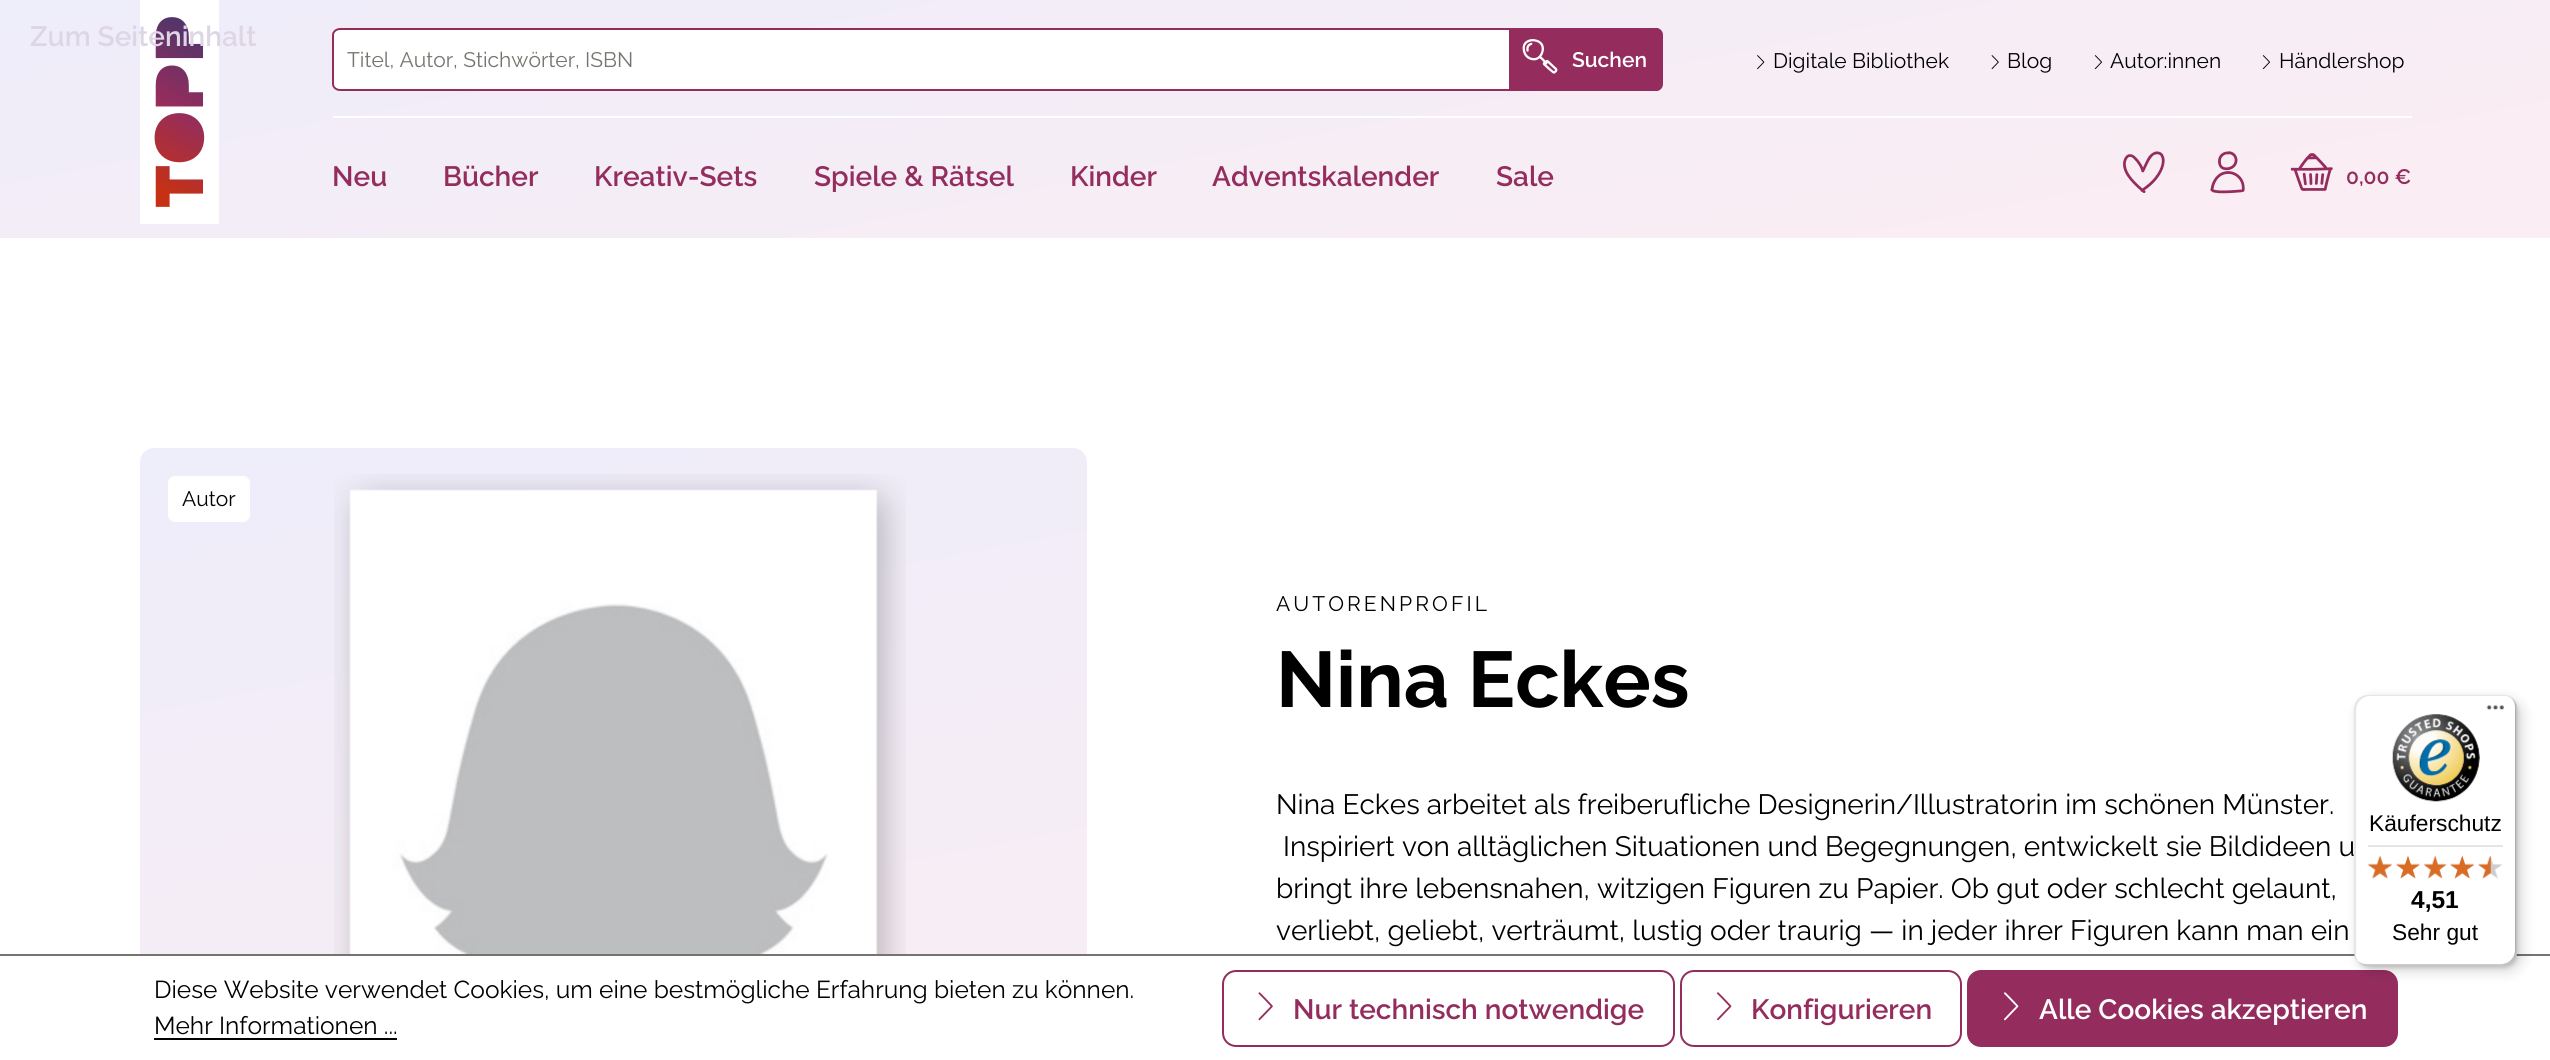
import math
import cairo


def use_color(cr, r, g, b):
  cr.set_source_rgb(r / 255, g / 255, b / 255)

def text(cr, x, y, s, family, size, color, bold=False, italic=False):
  cr.select_font_face(family, cairo.FONT_SLANT_ITALIC if italic else cairo.FONT_SLANT_NORMAL, cairo.FONT_WEIGHT_BOLD if bold else cairo.FONT_WEIGHT_NORMAL)
  cr.set_font_size(size)
  use_color(cr, *color)
  cr.move_to(x, y)
  cr.show_text(s)

def spaced_text(cr, x, y, s, letter, word):
  cr.move_to(x, y)
  for ch in s:
    cr.show_text(ch)
    cr.rel_move_to(letter + word * (ch == ' '), 0)

def box(cr, x, y, w, h, *color):
  use_color(cr, *color)
  cr.rectangle(x, y, w, h)
  cr.fill()

def round_rect(cr, x, y, w, h, r):
  cr.new_sub_path()
  for i, (u, v) in enumerate([(x + w - r, y + h - r), (x + r, y + h - r), (x + r, y + r), (x + w - r, y + r)]):
    cr.arc(u, v, r, i * math.pi / 2, (i + 1) * math.pi / 2)
  cr.close_path()

def shadow(cr, x, y, w, h, r, blur, alpha):
  cr.push_group_with_content(cairo.CONTENT_ALPHA)
  cr.set_operator(cairo.OPERATOR_SOURCE)
  for i in range(15, -16, -2):
    e = blur * i / 6
    if min(w, h) + 2 * e > 0:
      cr.set_source_rgba(0, 0, 0, alpha * math.erfc((i - 1) / 8.5) / 2)
      round_rect(cr, x - e, y - e, w + 2 * e, h + 2 * e, max(0, min(r + e + blur * .6, min(w, h) / 2 + e)))
      cr.fill()
  cr.mask(cr.pop_group())

def picture(cr, path, x, y, w, h):
  cr.save()
  cr.set_source_surface(cairo.ImageSurface.create_from_png(path), x, y)
  cr.rectangle(x, y, w, h)
  cr.fill()
  cr.restore()

def draw(cr):
  use_color(cr, 255, 255, 255)
  cr.paint()
  gradient = cairo.LinearGradient(1345, 473, 1207, -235)
  gradient.add_color_stop_rgba(0.16, 0.98, 0.929, 0.953, 1)
  gradient.add_color_stop_rgba(1, 0.933, 0.929, 0.98, 1)
  cr.set_source(gradient)
  cr.rectangle(0, 0, 2550, 238)
  cr.fill()
  picture(cr, "img_01.png", 140, 0, 79, 224)
  use_color(cr, 255, 255, 255)
  cr.new_path()
  cr.move_to(339, 30)
  cr.line_to(1510, 30)
  cr.line_to(1510, 89)
  cr.line_to(339, 89)
  cr.curve_to(336, 89, 334, 87, 334, 84)
  cr.line_to(334, 35)
  cr.curve_to(334, 32, 336, 30, 339, 30)
  cr.close_path()
  cr.fill()
  use_color(cr, 148, 45, 93)
  cr.set_fill_rule(cairo.FILL_RULE_EVEN_ODD)
  cr.new_path()
  cr.move_to(340, 28)
  cr.line_to(1510, 28)
  cr.line_to(1510, 91)
  cr.line_to(340, 91)
  cr.curve_to(336, 91, 332, 88, 332, 84)
  cr.line_to(332, 35)
  cr.curve_to(332, 31, 336, 28, 340, 28)
  cr.close_path()
  cr.move_to(340, 30)
  cr.line_to(1510, 30)
  cr.line_to(1510, 89)
  cr.line_to(340, 89)
  cr.curve_to(337, 89, 334, 87, 334, 84)
  cr.line_to(334, 35)
  cr.curve_to(334, 32, 337, 30, 340, 30)
  cr.close_path()
  cr.fill()
  cr.new_path()
  cr.move_to(1509, 28)
  cr.line_to(1656, 28)
  cr.curve_to(1660, 28, 1663, 31, 1663, 35)
  cr.line_to(1663, 84)
  cr.curve_to(1663, 88, 1660, 91, 1656, 91)
  cr.line_to(1509, 91)
  cr.close_path()
  cr.fill()
  cr.new_path()
  cr.move_to(1508, 28)
  cr.line_to(1656, 28)
  cr.curve_to(1659, 28, 1662, 31, 1662, 35)
  cr.line_to(1662, 84)
  cr.curve_to(1662, 88, 1659, 91, 1656, 91)
  cr.line_to(1508, 91)
  cr.close_path()
  cr.move_to(1508, 30)
  cr.line_to(1656, 30)
  cr.curve_to(1658, 30, 1661, 32, 1661, 35)
  cr.line_to(1661, 84)
  cr.curve_to(1661, 87, 1658, 89, 1656, 89)
  cr.line_to(1508, 89)
  cr.close_path()
  cr.fill()
  picture(cr, "img_02.png", 1522, 39, 36, 35)
  picture(cr, "img_03.png", 1757, 55, 8, 15)
  picture(cr, "img_04.png", 1991, 55, 8, 15)
  picture(cr, "img_05.png", 2094, 55, 8, 15)
  picture(cr, "img_06.png", 2262, 55, 8, 15)
  box(cr, 333, 116, 2079, 2, 255, 255, 255)
  picture(cr, "img_07.png", 2123, 151, 42, 43)
  picture(cr, "img_08.png", 2210, 151, 35, 43)
  picture(cr, "img_09.png", 2290, 153, 43, 38)
  gradient = cairo.LinearGradient(713, 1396, 514, 375)
  gradient.add_color_stop_rgba(0.16, 0.98, 0.929, 0.953, 1)
  gradient.add_color_stop_rgba(1, 0.933, 0.929, 0.98, 1)
  cr.set_source(gradient)
  round_rect(cr, 140, 448, 947, 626, 14)
  cr.fill()
  picture(cr, "img_10.png", 334, 474, 572, 480)
  use_color(cr, 255, 255, 255)
  round_rect(cr, 168, 476, 82, 46, 7)
  cr.fill()
  box(cr, 0, 954, 2550, 2, 117, 116, 110)
  use_color(cr, 148, 45, 93)
  round_rect(cr, 1968, 971, 429, 75, 13)
  cr.fill_preserve()
  cr.stroke()
  use_color(cr, 0, 0, 0)
  shadow(cr, 2359, 700, 163, 271, 14, 7, 0.15)
  shadow(cr, 2356, 697, 162, 271, 14, 2, 0.15)
  use_color(cr, 255, 255, 255)
  round_rect(cr, 2354, 695, 163, 271, 14)
  cr.fill()
  cr.set_source_rgba(0, 0, 0, 0.1)
  cr.set_fill_rule(cairo.FILL_RULE_WINDING)
  cr.new_path()
  cr.move_to(2370, 696)
  cr.line_to(2504, 696)
  cr.curve_to(2508, 696, 2512, 698, 2514, 701)
  cr.curve_to(2512, 697, 2508, 695, 2503, 695)
  cr.line_to(2368, 695)
  cr.curve_to(2360, 695, 2354, 701, 2354, 709)
  cr.line_to(2354, 952)
  cr.curve_to(2354, 957, 2356, 961, 2360, 963)
  cr.curve_to(2357, 961, 2356, 957, 2356, 954)
  cr.line_to(2356, 710)
  cr.curve_to(2356, 703, 2362, 696, 2370, 696)
  cr.close_path()
  cr.fill()
  cr.set_source_rgba(0, 0, 0, 0.2)
  cr.new_path()
  cr.move_to(2358, 961)
  cr.curve_to(2360, 964, 2364, 966, 2368, 966)
  cr.line_to(2503, 966)
  cr.curve_to(2511, 966, 2517, 960, 2517, 952)
  cr.line_to(2517, 709)
  cr.curve_to(2517, 704, 2515, 700, 2511, 698)
  cr.curve_to(2514, 700, 2515, 703, 2515, 707)
  cr.line_to(2515, 950)
  cr.curve_to(2515, 958, 2508, 964, 2501, 964)
  cr.line_to(2366, 964)
  cr.curve_to(2363, 964, 2360, 963, 2358, 961)
  cr.close_path()
  cr.fill()
  cr.set_source_rgba(0.196, 0.196, 0.196, 0.2)
  cr.new_path()
  cr.move_to(2359, 962)
  cr.curve_to(2361, 965, 2364, 966, 2368, 966)
  cr.line_to(2503, 966)
  cr.curve_to(2511, 966, 2517, 960, 2517, 952)
  cr.line_to(2517, 709)
  cr.curve_to(2517, 703, 2514, 699, 2509, 696)
  cr.curve_to(2513, 699, 2515, 703, 2515, 708)
  cr.line_to(2515, 951)
  cr.curve_to(2515, 959, 2509, 965, 2501, 965)
  cr.line_to(2367, 965)
  cr.curve_to(2364, 965, 2361, 964, 2359, 962)
  cr.close_path()
  cr.fill()
  cr.set_source_rgba(1, 1, 1, 0.3)
  cr.new_path()
  cr.move_to(2359, 962)
  cr.curve_to(2361, 965, 2364, 966, 2368, 966)
  cr.line_to(2503, 966)
  cr.curve_to(2511, 966, 2517, 960, 2517, 952)
  cr.line_to(2517, 709)
  cr.curve_to(2517, 704, 2515, 700, 2511, 698)
  cr.curve_to(2514, 700, 2516, 704, 2516, 708)
  cr.line_to(2516, 951)
  cr.curve_to(2516, 959, 2509, 965, 2502, 965)
  cr.line_to(2367, 965)
  cr.curve_to(2364, 965, 2361, 964, 2359, 962)
  cr.close_path()
  cr.fill()
  picture(cr, "img_11.png", 2486, 705, 18, 5)
  picture(cr, "img_12.png", 2392, 714, 88, 88)
  box(cr, 2368, 845, 135, 2, 229, 229, 229)
  picture(cr, "img_13.png", 2367, 856, 25, 23)
  picture(cr, "img_14.png", 2396, 856, 24, 23)
  picture(cr, "img_15.png", 2424, 856, 23, 23)
  picture(cr, "img_16.png", 2450, 855, 24, 24)
  picture(cr, "img_17.png", 2478, 856, 24, 23)
  picture(cr, "img_18.png", 2367, 855, 25, 24)
  picture(cr, "img_19.png", 2396, 855, 24, 24)
  picture(cr, "img_20.png", 2423, 855, 24, 24)
  picture(cr, "img_21.png", 2450, 855, 24, 24)
  picture(cr, "img_22.png", 2478, 855, 13, 24)
  box(cr, 140, 956, 947, 104, 255, 255, 255)
  box(cr, 154, 1038, 243, 2, 0, 0, 0)
  round_rect(cr, 1223, 971, 451, 75, 13)
  use_color(cr, 148, 45, 93)
  cr.stroke()
  picture(cr, "img_23.png", 1258, 992, 15, 29)
  round_rect(cr, 1681, 971, 280, 75, 13)
  cr.stroke()
  picture(cr, "img_24.png", 1717, 992, 15, 29)
  picture(cr, "img_25.png", 2004, 992, 15, 29)
  text(cr, 30, 46, "Zum Seiteninhalt", "Raleway SemiBold", 28, (222, 213, 229))
  text(cr, 347, 67, "Titel, Autor, Stichwörter, ISBN", "Raleway", 21, (117, 116, 110))
  text(cr, 1572, 67, "Suchen", "Raleway SemiBold", 21, (255, 255, 255))
  text(cr, 1773, 68, "Digitale Bibliothek", "Raleway", 21, (0, 0, 0))
  text(cr, 2007, 68, "Blog", "Raleway", 21, (0, 0, 0))
  text(cr, 2110, 68, "Autor:innen", "Raleway", 21, (0, 0, 0))
  text(cr, 2279, 68, "Händlershop", "Raleway", 21, (0, 0, 0))
  text(cr, 332, 186, "Neu", "Raleway SemiBold", 28, (148, 45, 93))
  text(cr, 443, 186, "Bücher", "Raleway SemiBold", 28, (148, 45, 93))
  text(cr, 594, 186, "Kreativ-Sets", "Raleway SemiBold", 28, (148, 45, 93))
  text(cr, 814, 186, "Spiele & Rätsel", "Raleway SemiBold", 28, (148, 45, 93))
  text(cr, 1070, 186, "Kinder", "Raleway SemiBold", 28, (148, 45, 93))
  text(cr, 1212, 186, "Adventskalender", "Raleway SemiBold", 28, (148, 45, 93))
  text(cr, 1496, 186, "Sale", "Raleway SemiBold", 28, (148, 45, 93))
  text(cr, 2346, 184, "0,00 €", "Raleway SemiBold", 21, (148, 45, 93))
  text(cr, 182, 506, "Autor", "Raleway", 21, (0, 0, 0))
  spaced_text(cr, 1276, 611, "AUTORENPROFIL", 3.1, 0)
  text(cr, 1276, 707, "Nina Eckes", "Raleway", 78.75, (0, 0, 0), bold=True)
  text(cr, 1276, 814, "Nina Eckes arbeitet als freiberufliche Designerin/Illustratorin im schönen Münster.", "Raleway", 28, (0, 0, 0))
  text(cr, 1283, 856, "Inspiriert von alltäglichen Situationen und Begegnungen, entwickelt sie Bildideen u", "Raleway", 28, (0, 0, 0))
  text(cr, 1276, 898, "bringt ihre lebensnahen, witzigen Figuren zu Papier. Ob gut oder schlecht gelaunt,", "Raleway", 28, (0, 0, 0))
  text(cr, 1276, 940, "verliebt, geliebt, verträumt, lustig oder traurig — in jeder ihrer Figuren kann man ein", "Raleway", 28, (0, 0, 0))
  text(cr, 2369, 831, "Käuferschutz", "Liberation Sans", 22.75, (0, 0, 0))
  text(cr, 2411, 908, "4,51", "Liberation Sans", 24.5, (0, 0, 0), bold=True)
  text(cr, 2392, 940, "Sehr gut", "Liberation Sans", 22.75, (0, 0, 0))
  text(cr, 154, 998, "Diese Website verwendet Cookies, um eine bestmögliche Erfahrung bieten zu können.", "Raleway", 24.5, (0, 0, 0))
  text(cr, 154, 1034, "Mehr Informationen ...", "Raleway", 24.5, (0, 0, 0))
  text(cr, 1293, 1019, "Nur technisch notwendige", "Raleway SemiBold", 28, (148, 45, 93))
  text(cr, 1751, 1019, "Konfigurieren", "Raleway SemiBold", 28, (148, 45, 93))
  text(cr, 2039, 1019, "Alle Cookies akzeptieren", "Raleway SemiBold", 28, (255, 255, 255))


surface = cairo.ImageSurface(cairo.FORMAT_RGB24, 2550, 1060)
cr = cairo.Context(surface)
options = cairo.FontOptions()
options.set_hint_metrics(cairo.HINT_METRICS_OFF)
options.set_hint_style(cairo.HINT_STYLE_NONE)
cr.set_font_options(options)
cr.set_miter_limit(4)
draw(cr)
surface.write_to_png("out.png")
